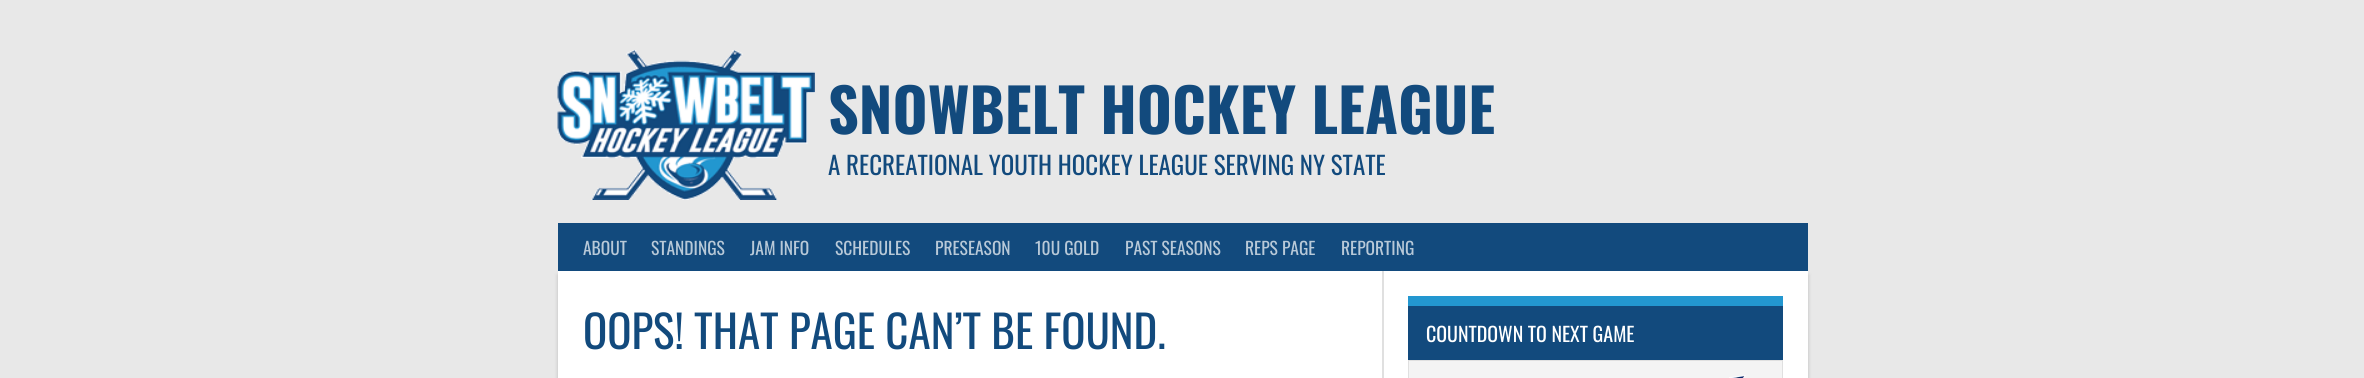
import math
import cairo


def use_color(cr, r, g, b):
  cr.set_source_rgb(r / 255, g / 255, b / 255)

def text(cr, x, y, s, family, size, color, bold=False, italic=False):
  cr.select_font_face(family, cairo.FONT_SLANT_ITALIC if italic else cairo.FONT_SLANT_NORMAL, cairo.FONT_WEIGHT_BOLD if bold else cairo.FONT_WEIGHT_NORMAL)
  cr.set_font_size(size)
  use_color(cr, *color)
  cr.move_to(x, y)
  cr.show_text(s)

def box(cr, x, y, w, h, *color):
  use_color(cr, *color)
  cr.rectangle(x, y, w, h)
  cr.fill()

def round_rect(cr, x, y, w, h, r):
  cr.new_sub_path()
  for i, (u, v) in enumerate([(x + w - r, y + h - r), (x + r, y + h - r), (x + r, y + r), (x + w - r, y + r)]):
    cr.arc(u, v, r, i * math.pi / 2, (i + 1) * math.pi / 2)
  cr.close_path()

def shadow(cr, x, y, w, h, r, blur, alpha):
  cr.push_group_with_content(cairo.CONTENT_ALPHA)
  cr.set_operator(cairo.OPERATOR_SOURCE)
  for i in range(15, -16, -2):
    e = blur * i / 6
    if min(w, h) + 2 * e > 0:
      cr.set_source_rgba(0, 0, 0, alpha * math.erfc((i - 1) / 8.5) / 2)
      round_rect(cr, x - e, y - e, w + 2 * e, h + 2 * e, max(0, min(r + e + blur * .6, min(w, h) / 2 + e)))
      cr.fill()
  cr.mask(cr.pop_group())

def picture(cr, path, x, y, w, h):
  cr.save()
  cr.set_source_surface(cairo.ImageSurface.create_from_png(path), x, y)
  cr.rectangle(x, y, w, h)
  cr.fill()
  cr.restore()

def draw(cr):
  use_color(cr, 232, 232, 232)
  cr.paint()
  picture(cr, "img_01.png", 557, 50, 258, 150)
  use_color(cr, 0, 0, 0)
  shadow(cr, 558, 275, 1250, 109, 0, 2, 0.2)
  box(cr, 558, 223, 1250, 48, 18, 74, 125)
  box(cr, 558, 271, 1250, 107, 255, 255, 255)
  use_color(cr, 224, 224, 224)
  cr.new_path()
  cr.move_to(559, 271)
  cr.line_to(1382, 271)
  cr.line_to(1382, 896)
  cr.line_to(1384, 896)
  cr.line_to(1384, 271)
  cr.close_path()
  cr.fill()
  box(cr, 1408, 306, 375, 54, 18, 74, 125)
  box(cr, 1408, 296, 375, 10, 35, 151, 208)
  use_color(cr, 244, 244, 244)
  cr.rectangle(1408.5, 360.5, 374, 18)
  cr.fill_preserve()
  use_color(cr, 224, 224, 224)
  cr.set_line_width(1)
  cr.stroke()
  picture(cr, "img_02.png", 1729, 375, 17, 3)
  text(cr, 828, 134, "SNOWBELT HOCKEY LEAGUE", "Oswald", 60, (18, 74, 125), bold=True)
  text(cr, 828, 175, "A RECREATIONAL YOUTH HOCKEY LEAGUE SERVING NY STATE", "Oswald", 25, (18, 74, 125))
  text(cr, 583, 255, "ABOUT", "Oswald", 17.5, (184, 201, 216))
  text(cr, 651, 255, "STANDINGS", "Oswald", 17.5, (184, 201, 216))
  text(cr, 750, 255, "JAM INFO", "Oswald", 17.5, (184, 201, 216))
  text(cr, 835, 255, "SCHEDULES", "Oswald", 17.5, (184, 201, 216))
  text(cr, 935, 255, "PRESEASON", "Oswald", 17.5, (184, 201, 216))
  text(cr, 1035, 255, "10U GOLD", "Oswald", 17.5, (184, 201, 216))
  text(cr, 1125, 255, "PAST SEASONS", "Oswald", 17.5, (184, 201, 216))
  text(cr, 1245, 255, "REPS PAGE", "Oswald", 17.5, (184, 201, 216))
  text(cr, 1341, 255, "REPORTING", "Oswald", 17.5, (184, 201, 216))
  text(cr, 583, 349, "OOPS! THAT PAGE CAN’T BE FOUND.", "Oswald", 45, (18, 74, 125))
  text(cr, 1426, 342, "COUNTDOWN TO NEXT GAME", "Oswald", 20, (255, 255, 255))


surface = cairo.ImageSurface(cairo.FORMAT_RGB24, 2364, 378)
cr = cairo.Context(surface)
options = cairo.FontOptions()
options.set_hint_metrics(cairo.HINT_METRICS_OFF)
options.set_hint_style(cairo.HINT_STYLE_NONE)
cr.set_font_options(options)
cr.set_miter_limit(4)
draw(cr)
surface.write_to_png("out.png")
